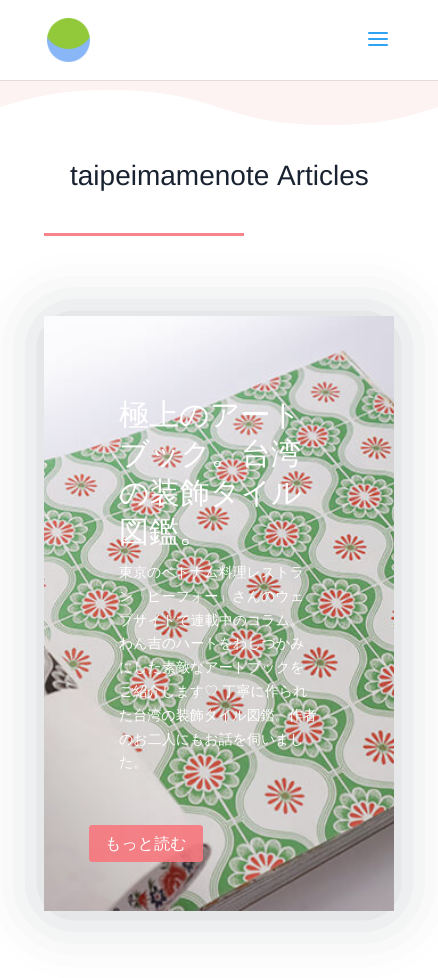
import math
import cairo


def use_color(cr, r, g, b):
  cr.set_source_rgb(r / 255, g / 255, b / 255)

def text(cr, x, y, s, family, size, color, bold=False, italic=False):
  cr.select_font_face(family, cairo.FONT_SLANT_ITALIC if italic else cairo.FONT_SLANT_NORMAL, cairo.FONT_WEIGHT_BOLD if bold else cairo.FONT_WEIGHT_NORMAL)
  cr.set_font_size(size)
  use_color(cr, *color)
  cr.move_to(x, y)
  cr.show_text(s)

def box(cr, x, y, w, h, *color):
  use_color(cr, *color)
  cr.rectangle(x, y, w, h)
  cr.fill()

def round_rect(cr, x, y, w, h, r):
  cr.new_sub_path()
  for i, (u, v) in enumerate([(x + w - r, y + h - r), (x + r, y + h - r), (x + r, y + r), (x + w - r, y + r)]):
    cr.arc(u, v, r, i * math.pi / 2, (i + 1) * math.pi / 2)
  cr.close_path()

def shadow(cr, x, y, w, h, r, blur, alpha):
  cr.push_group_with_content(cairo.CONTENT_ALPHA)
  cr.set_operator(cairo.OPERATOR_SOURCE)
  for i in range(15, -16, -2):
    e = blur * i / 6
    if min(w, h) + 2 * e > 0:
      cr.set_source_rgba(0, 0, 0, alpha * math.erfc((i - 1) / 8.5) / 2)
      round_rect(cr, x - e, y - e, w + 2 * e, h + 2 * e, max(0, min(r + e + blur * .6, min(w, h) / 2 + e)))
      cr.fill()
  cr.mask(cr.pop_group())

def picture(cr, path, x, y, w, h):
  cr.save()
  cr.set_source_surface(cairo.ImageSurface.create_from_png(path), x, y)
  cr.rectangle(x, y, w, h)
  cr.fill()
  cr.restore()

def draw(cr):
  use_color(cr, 255, 255, 255)
  cr.paint()
  use_color(cr, 254, 243, 243)
  cr.new_path()
  cr.move_to(328, 125)
  cr.curve_to(219, 125, 219, 90, 110, 90)
  cr.curve_to(55, 90, 27, 99, 0, 107)
  cr.line_to(0, 79)
  cr.line_to(438, 79)
  cr.line_to(438, 107)
  cr.curve_to(411, 116, 383, 125, 328, 125)
  cr.close_path()
  cr.fill()
  box(cr, 0, 80, 438, 1, 229, 219, 219)
  box(cr, 0, 79, 438, 1, 255, 255, 255)
  picture(cr, "img_01.png", 47, 18, 43, 44)
  picture(cr, "img_02.png", 368, 32, 20, 14)
  box(cr, 44, 233, 200, 3, 248, 133, 139)
  use_color(cr, 25, 34, 49)
  shadow(cr, 54, 328, 330, 575, 0, 35, 0.3)
  picture(cr, "img_03.png", 44, 316, 350, 595)
  cr.set_source_rgba(0.969, 0.463, 0.49, 0.89)
  round_rect(cr, 89, 825, 114, 37, 3)
  cr.fill()
  text(cr, 70, 185, "taipeimamenote Articles", "Liberation Sans", 28, (25, 34, 49))
  text(cr, 119, 425, "極上のアート", "WenQuanYi Zen Hei Medium", 30, (255, 255, 255))
  text(cr, 119, 464, "ブック。台湾", "WenQuanYi Zen Hei Medium", 30, (255, 255, 255))
  text(cr, 119, 503, "の装飾タイル", "WenQuanYi Zen Hei Medium", 30, (255, 255, 255))
  text(cr, 119, 542, "図鑑。", "WenQuanYi Zen Hei Medium", 30, (255, 255, 255))
  text(cr, 119, 577, "東京のベトナム料理レストラ", "WenQuanYi Zen Hei Medium", 14, (255, 255, 255))
  text(cr, 119, 601, "ン「ピーフォー」さんのウェ", "WenQuanYi Zen Hei Medium", 14, (255, 255, 255))
  text(cr, 119, 625, "ブサイトで連載中のコラム。", "WenQuanYi Zen Hei Medium", 14, (255, 255, 255))
  text(cr, 119, 648, "わん吉のハートをわしづかみ", "WenQuanYi Zen Hei Medium", 14, (255, 255, 255))
  text(cr, 119, 672, "にした素敵なアートブックを", "WenQuanYi Zen Hei Medium", 14, (255, 255, 255))
  text(cr, 119, 696, "ご紹介します♡ 丁寧に作られ", "WenQuanYi Zen Hei Medium", 14, (255, 255, 255))
  text(cr, 119, 720, "た台湾の装飾タイル図鑑。作者", "WenQuanYi Zen Hei Medium", 14, (255, 255, 255))
  text(cr, 119, 744, "のお二人にもお話を伺いまし", "WenQuanYi Zen Hei Medium", 14, (255, 255, 255))
  text(cr, 119, 767, "た。", "WenQuanYi Zen Hei Medium", 14, (255, 255, 255))
  text(cr, 105, 849, "もっと読む", "WenQuanYi Zen Hei Medium", 16, (255, 255, 255))


surface = cairo.ImageSurface(cairo.FORMAT_RGB24, 438, 978)
cr = cairo.Context(surface)
options = cairo.FontOptions()
options.set_hint_metrics(cairo.HINT_METRICS_OFF)
options.set_hint_style(cairo.HINT_STYLE_NONE)
cr.set_font_options(options)
cr.set_miter_limit(4)
draw(cr)
surface.write_to_png("out.png")
